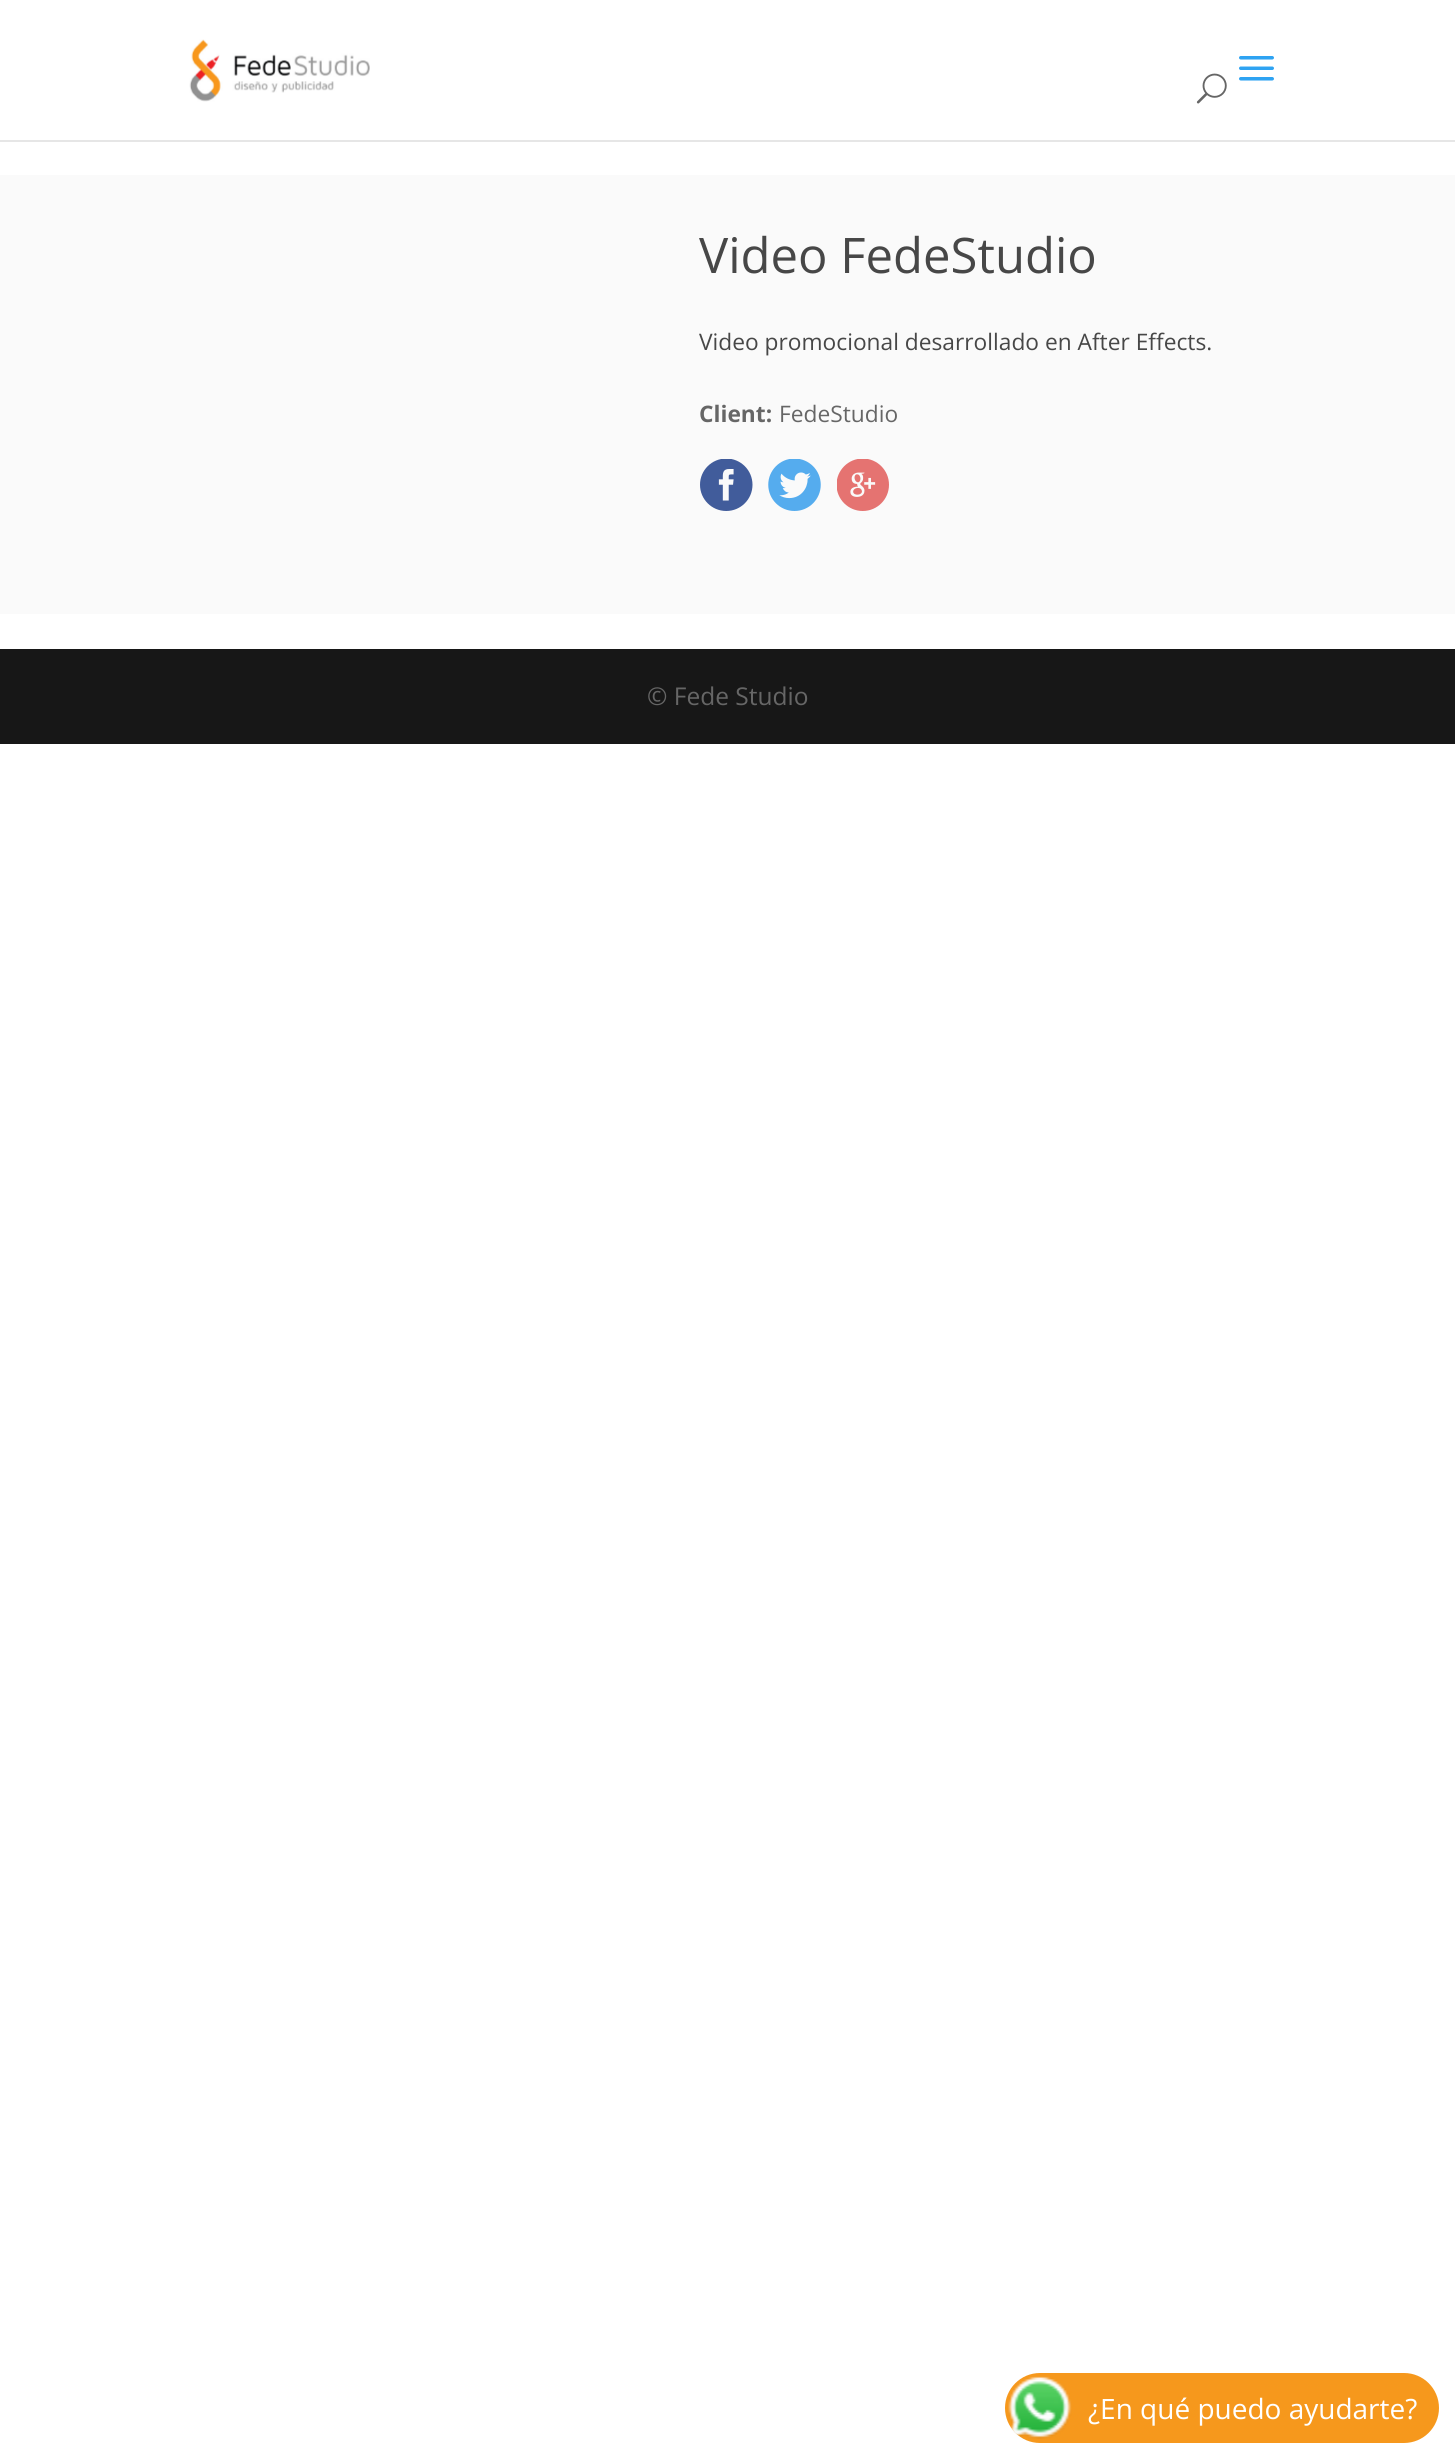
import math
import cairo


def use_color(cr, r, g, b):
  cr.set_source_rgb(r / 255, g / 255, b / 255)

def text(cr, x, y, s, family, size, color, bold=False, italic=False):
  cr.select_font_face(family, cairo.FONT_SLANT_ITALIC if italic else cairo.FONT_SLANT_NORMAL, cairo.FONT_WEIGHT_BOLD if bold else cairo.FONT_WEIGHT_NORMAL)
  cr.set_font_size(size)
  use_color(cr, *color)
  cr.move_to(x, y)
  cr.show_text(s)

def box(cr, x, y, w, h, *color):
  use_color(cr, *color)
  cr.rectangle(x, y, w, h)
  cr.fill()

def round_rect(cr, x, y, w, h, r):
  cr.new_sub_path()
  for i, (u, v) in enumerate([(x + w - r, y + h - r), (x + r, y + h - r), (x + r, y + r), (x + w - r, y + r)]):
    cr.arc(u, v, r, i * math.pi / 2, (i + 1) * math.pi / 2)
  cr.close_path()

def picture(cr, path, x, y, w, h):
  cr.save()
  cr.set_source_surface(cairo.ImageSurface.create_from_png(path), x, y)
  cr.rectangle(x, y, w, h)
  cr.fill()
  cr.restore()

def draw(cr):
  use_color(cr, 255, 255, 255)
  cr.paint()
  box(cr, 0, 140, 1455, 2, 230, 230, 230)
  picture(cr, "img_01.png", 189, 39, 181, 63)
  picture(cr, "img_02.png", 1239, 56, 35, 25)
  picture(cr, "img_03.png", 1196, 73, 31, 31)
  box(cr, 0, 175, 1455, 439, 250, 250, 250)
  picture(cr, "img_04.png", 700, 459, 53, 52)
  picture(cr, "img_05.png", 768, 459, 53, 52)
  picture(cr, "img_06.png", 837, 459, 52, 52)
  box(cr, 0, 649, 1455, 95, 23, 23, 23)
  use_color(cr, 246, 152, 28)
  round_rect(cr, 1005, 2373, 434, 70, 35)
  cr.fill()
  picture(cr, "img_07.png", 1008, 2376, 64, 63)
  text(cr, 699, 273, "Video FedeStudio", "Open Sans", 49, (71, 71, 71))
  text(cr, 699, 350, "Video promocional desarrollado en After Effects.", "Open Sans", 22.75, (71, 71, 71))
  text(cr, 699, 422, "Client:", "Open Sans", 22.75, (102, 102, 102), bold=True)
  text(cr, 779, 422, "FedeStudio", "Open Sans", 22.75, (102, 102, 102))
  text(cr, 647, 705, "© Fede Studio", "Open Sans", 24.5, (102, 102, 102))
  text(cr, 1088, 2419, "¿En qué puedo ayudarte?", "Open Sans", 28, (255, 255, 255))


surface = cairo.ImageSurface(cairo.FORMAT_RGB24, 1455, 2459)
cr = cairo.Context(surface)
options = cairo.FontOptions()
options.set_hint_metrics(cairo.HINT_METRICS_OFF)
options.set_hint_style(cairo.HINT_STYLE_NONE)
cr.set_font_options(options)
cr.set_miter_limit(4)
draw(cr)
surface.write_to_png("out.png")
